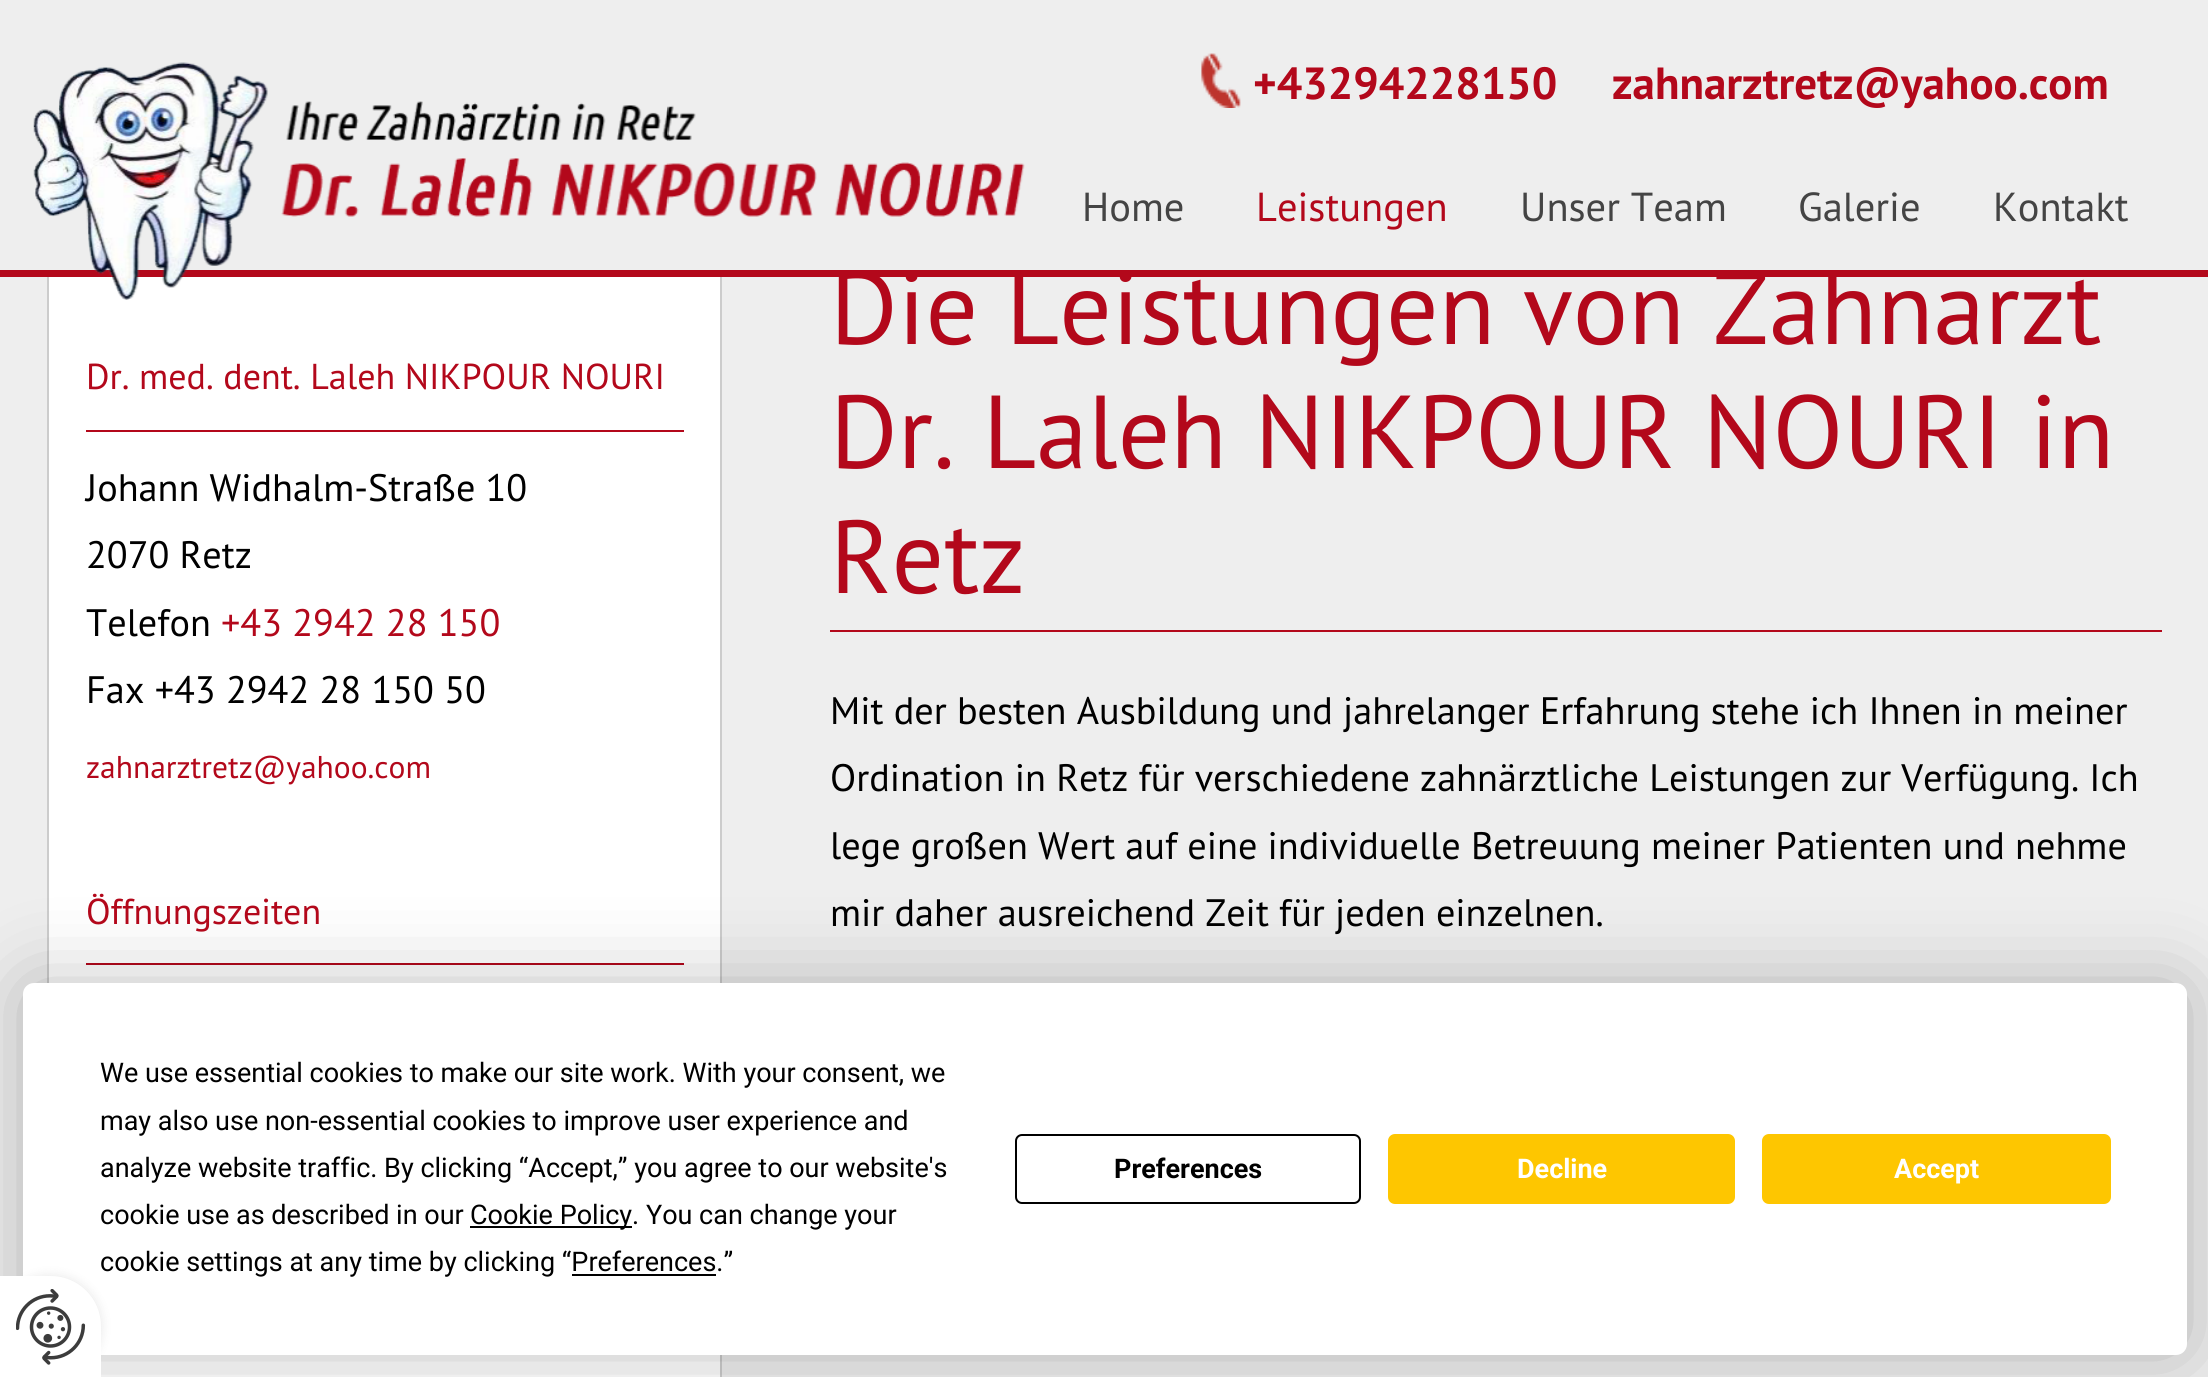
import math
import cairo


def use_color(cr, r, g, b):
  cr.set_source_rgb(r / 255, g / 255, b / 255)

def text(cr, x, y, s, family, size, color, bold=False, italic=False):
  cr.select_font_face(family, cairo.FONT_SLANT_ITALIC if italic else cairo.FONT_SLANT_NORMAL, cairo.FONT_WEIGHT_BOLD if bold else cairo.FONT_WEIGHT_NORMAL)
  cr.set_font_size(size)
  use_color(cr, *color)
  cr.move_to(x, y)
  cr.show_text(s)

def box(cr, x, y, w, h, *color):
  use_color(cr, *color)
  cr.rectangle(x, y, w, h)
  cr.fill()

def round_rect(cr, x, y, w, h, r):
  cr.new_sub_path()
  for i, (u, v) in enumerate([(x + w - r, y + h - r), (x + r, y + h - r), (x + r, y + r), (x + w - r, y + r)]):
    cr.arc(u, v, r, i * math.pi / 2, (i + 1) * math.pi / 2)
  cr.close_path()

def shadow(cr, x, y, w, h, r, blur, alpha):
  cr.push_group_with_content(cairo.CONTENT_ALPHA)
  cr.set_operator(cairo.OPERATOR_SOURCE)
  for i in range(15, -16, -2):
    e = blur * i / 6
    if min(w, h) + 2 * e > 0:
      cr.set_source_rgba(0, 0, 0, alpha * math.erfc((i - 1) / 8.5) / 2)
      round_rect(cr, x - e, y - e, w + 2 * e, h + 2 * e, max(0, min(r + e + blur * .6, min(w, h) / 2 + e)))
      cr.fill()
  cr.mask(cr.pop_group())

def picture(cr, path, x, y, w, h):
  cr.save()
  cr.set_source_surface(cairo.ImageSurface.create_from_png(path), x, y)
  cr.rectangle(x, y, w, h)
  cr.fill()
  cr.restore()

def draw(cr):
  use_color(cr, 238, 238, 238)
  cr.paint()
  box(cr, 49, 277, 671, 1100, 255, 255, 255)
  cr.rectangle(48, 258, 673, 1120)
  use_color(cr, 204, 204, 204)
  cr.stroke()
  box(cr, 47, 257, 675, 13, 238, 238, 238)
  box(cr, 0, 270, 2208, 7, 179, 8, 27)
  picture(cr, "img_01.png", 1201, 53, 40, 55)
  box(cr, 86, 430, 598, 2, 179, 8, 27)
  box(cr, 86, 963, 598, 2, 179, 8, 27)
  box(cr, 830, 630, 1332, 2, 179, 8, 27)
  use_color(cr, 0, 0, 0)
  shadow(cr, 23, 983, 2164, 372, 11, 39.5, 0.25)
  use_color(cr, 255, 255, 255)
  round_rect(cr, 23, 983, 2164, 372, 11)
  cr.fill()
  box(cr, 470, 1226, 162, 2, 0, 0, 0)
  box(cr, 572, 1274, 144, 2, 0, 0, 0)
  round_rect(cr, 1016, 1135, 344, 68, 6)
  cr.stroke()
  use_color(cr, 254, 198, 0)
  round_rect(cr, 1389, 1135, 345, 68, 6)
  cr.fill_preserve()
  cr.stroke()
  round_rect(cr, 1763, 1135, 347, 68, 6)
  cr.fill_preserve()
  cr.stroke()
  use_color(cr, 0, 0, 0)
  shadow(cr, 0, 1276, 101, 101, 50.5, 5.5, 0.1)
  text(cr, 1253, 99, "+43294228150", "PT Sans", 45, (179, 8, 27), bold=True)
  text(cr, 1612, 99, "zahnarztretz@yahoo.com", "PT Sans", 45, (179, 8, 27), bold=True)
  text(cr, 1082, 221, "Home", "PT Sans", 40.5, (68, 68, 68))
  text(cr, 1256, 221, "Leistungen", "PT Sans", 40.5, (179, 8, 27))
  text(cr, 1520, 221, "Unser Team", "PT Sans", 40.5, (68, 68, 68))
  text(cr, 1798, 221, "Galerie", "PT Sans", 40.5, (68, 68, 68))
  text(cr, 1993, 221, "Kontakt", "PT Sans", 40.5, (68, 68, 68))
  text(cr, 86, 389, "Dr. med. dent. Laleh NIKPOUR NOURI", "PT Sans", 36, (179, 8, 27))
  text(cr, 86, 501, "Johann Widhalm-Straße 10", "PT Sans", 38.25, (0, 0, 0))
  text(cr, 86, 568, "2070 Retz", "PT Sans", 38.25, (0, 0, 0))
  text(cr, 86, 636, "Telefon", "PT Sans", 38.25, (0, 0, 0))
  text(cr, 221, 636, "+43 2942 28 150", "PT Sans", 38.25, (179, 8, 27))
  text(cr, 86, 703, "Fax +43 2942 28 150 50", "PT Sans", 38.25, (0, 0, 0))
  text(cr, 86, 778, "zahnarztretz@yahoo.com", "PT Sans", 31.5, (179, 8, 27))
  text(cr, 86, 924, "Öffnungszeiten", "PT Sans", 36, (179, 8, 27))
  text(cr, 830, 344, "Die Leistungen von Zahnarzt", "PT Sans", 103.5, (179, 8, 27))
  picture(cr, "img_02.png", 33, 62, 992, 238)
  text(cr, 830, 468, "Dr. Laleh NIKPOUR NOURI in", "PT Sans", 103.5, (179, 8, 27))
  text(cr, 830, 593, "Retz", "PT Sans", 103.5, (179, 8, 27))
  text(cr, 830, 724, "Mit der besten Ausbildung und jahrelanger Erfahrung stehe ich Ihnen in meiner", "PT Sans", 38.25, (0, 0, 0))
  text(cr, 830, 791, "Ordination in Retz für verschiedene zahnärztliche Leistungen zur Verfügung. Ich", "PT Sans", 38.25, (0, 0, 0))
  text(cr, 830, 859, "lege großen Wert auf eine individuelle Betreuung meiner Patienten und nehme", "PT Sans", 38.25, (0, 0, 0))
  text(cr, 830, 926, "mir daher ausreichend Zeit für jeden einzelnen.", "PT Sans", 38.25, (0, 0, 0))
  text(cr, 100, 1082, "We use essential cookies to make our site work. With your consent, we", "Roboto", 27, (0, 0, 0))
  text(cr, 100, 1130, "may also use non-essential cookies to improve user experience and", "Roboto", 27, (0, 0, 0))
  text(cr, 100, 1177, "analyze website traffic. By clicking “Accept,” you agree to our website's", "Roboto", 27, (0, 0, 0))
  text(cr, 100, 1224, "cookie use as described in our", "Roboto", 27, (0, 0, 0))
  text(cr, 470, 1224, "Cookie Policy. You can change your", "Roboto", 27, (0, 0, 0))
  text(cr, 100, 1271, "cookie settings at any time by clicking “Preferences.”", "Roboto", 27, (0, 0, 0))
  text(cr, 1114, 1178, "Preferences", "Roboto", 27, (0, 0, 0), bold=True)
  text(cr, 1517, 1178, "Decline", "Roboto", 27, (255, 255, 255), bold=True)
  text(cr, 1894, 1178, "Accept", "Roboto", 27, (255, 255, 255), bold=True)
  cr.new_path()
  cr.move_to(0, 1276)
  cr.line_to(50.5, 1276)
  cr.curve_to(78.5, 1276, 101, 1298.5, 101, 1326.5)
  cr.line_to(101, 1377)
  cr.line_to(0, 1377)
  cr.close_path()
  cr.fill()
  picture(cr, "img_03.png", 16, 1289, 70, 76)


surface = cairo.ImageSurface(cairo.FORMAT_RGB24, 2208, 1377)
cr = cairo.Context(surface)
options = cairo.FontOptions()
options.set_hint_metrics(cairo.HINT_METRICS_OFF)
options.set_hint_style(cairo.HINT_STYLE_NONE)
cr.set_font_options(options)
cr.set_miter_limit(4)
draw(cr)
surface.write_to_png("out.png")
